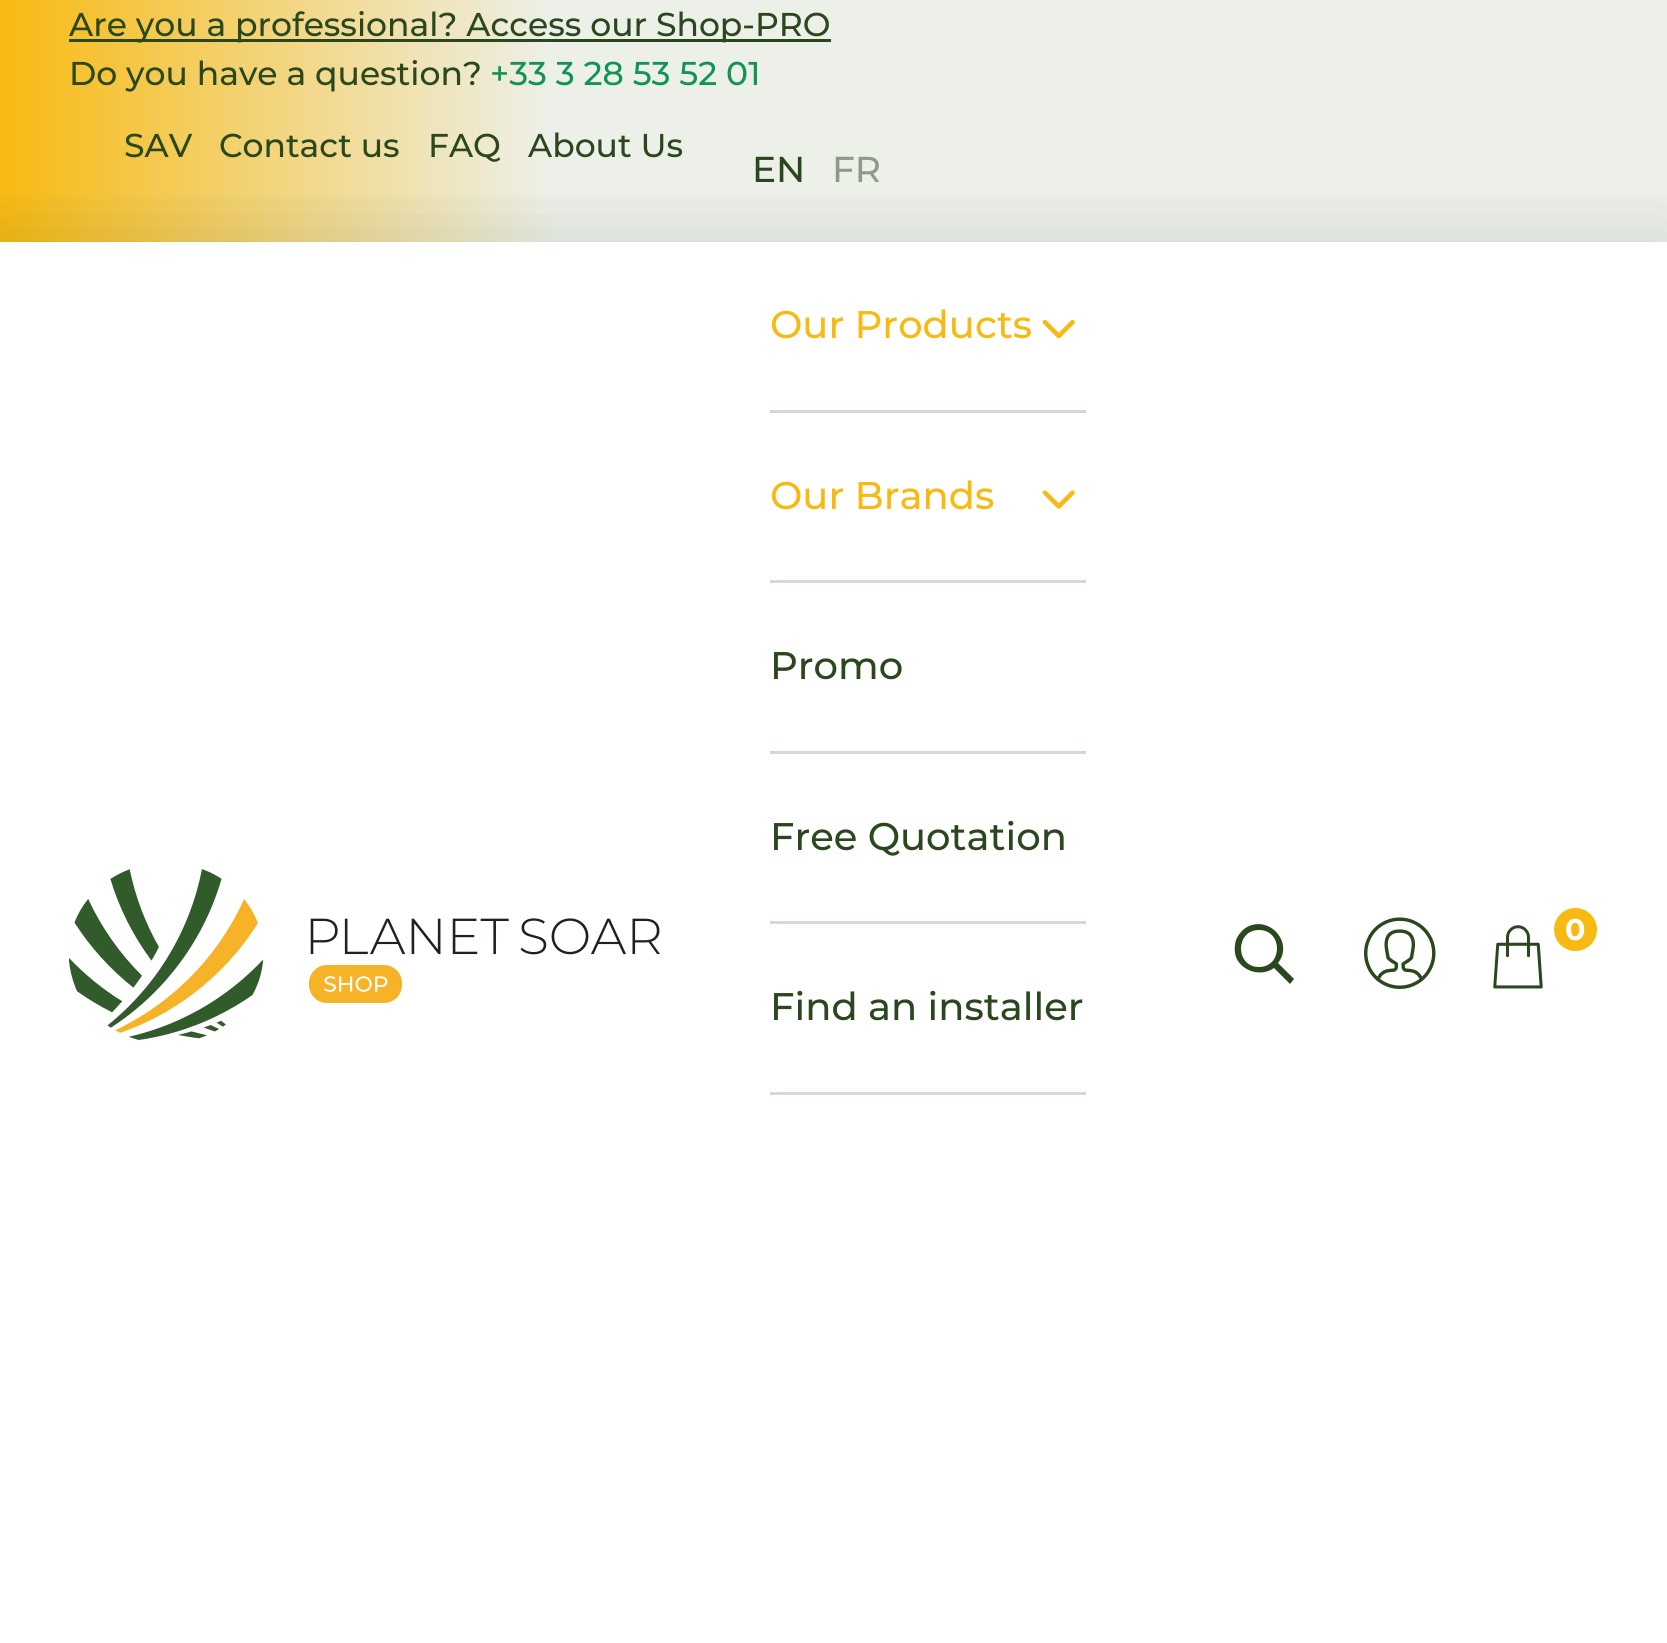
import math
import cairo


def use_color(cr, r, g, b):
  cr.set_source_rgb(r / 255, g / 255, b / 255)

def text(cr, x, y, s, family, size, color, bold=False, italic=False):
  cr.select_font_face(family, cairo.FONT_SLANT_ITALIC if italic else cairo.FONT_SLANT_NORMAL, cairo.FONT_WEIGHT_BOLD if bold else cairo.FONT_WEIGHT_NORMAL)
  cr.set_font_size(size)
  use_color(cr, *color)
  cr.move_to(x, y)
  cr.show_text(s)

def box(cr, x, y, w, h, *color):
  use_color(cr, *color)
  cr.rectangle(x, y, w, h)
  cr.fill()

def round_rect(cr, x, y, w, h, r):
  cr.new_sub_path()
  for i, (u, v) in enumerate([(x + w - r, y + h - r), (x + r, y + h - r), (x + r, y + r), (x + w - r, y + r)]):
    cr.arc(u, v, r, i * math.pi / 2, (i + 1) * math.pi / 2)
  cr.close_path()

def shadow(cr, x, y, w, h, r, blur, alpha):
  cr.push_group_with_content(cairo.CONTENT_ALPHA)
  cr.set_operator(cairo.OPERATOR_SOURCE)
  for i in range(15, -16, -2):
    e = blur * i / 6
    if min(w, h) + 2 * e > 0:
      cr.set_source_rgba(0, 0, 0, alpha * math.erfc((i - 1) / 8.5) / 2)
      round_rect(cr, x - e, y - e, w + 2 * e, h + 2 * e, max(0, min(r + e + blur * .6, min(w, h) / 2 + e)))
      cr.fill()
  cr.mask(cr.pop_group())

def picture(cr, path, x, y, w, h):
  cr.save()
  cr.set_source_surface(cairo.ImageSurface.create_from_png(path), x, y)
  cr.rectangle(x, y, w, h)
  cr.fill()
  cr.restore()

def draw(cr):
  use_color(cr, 255, 255, 255)
  cr.paint()
  gradient = cairo.LinearGradient(0, 121, 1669, 121)
  gradient.add_color_stop_rgba(0, 0.973, 0.729, 0.071, 1)
  gradient.add_color_stop_rgba(0.33, 0.929, 0.941, 0.914, 1)
  cr.set_source(gradient)
  cr.rectangle(0, 0, 1667, 242)
  cr.fill()
  box(cr, 69, 39, 762, 3, 42, 71, 30)
  cr.save()
  cr.rectangle(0, 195, 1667, 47)
  cr.clip()
  use_color(cr, 29, 51, 25)
  shadow(cr, 0, 248, 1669, 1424, 0, 41, 0.2)
  cr.restore()
  picture(cr, "img_01.png", 69, 869, 591, 171)
  box(cr, 770, 410, 316, 3, 211, 217, 212)
  picture(cr, "img_02.png", 1042, 319, 33, 20)
  box(cr, 770, 580, 316, 3, 211, 217, 212)
  picture(cr, "img_03.png", 1042, 490, 33, 19)
  box(cr, 770, 751, 316, 3, 211, 217, 212)
  box(cr, 770, 921, 316, 3, 211, 217, 212)
  box(cr, 770, 1092, 316, 3, 211, 217, 212)
  use_color(cr, 42, 71, 30)
  cr.new_path()
  cr.move_to(1274, 968)
  cr.curve_to(1263, 976, 1246, 973, 1238, 961)
  cr.curve_to(1234, 955, 1234, 947, 1236, 940)
  cr.curve_to(1238, 935, 1242, 930, 1247, 927)
  cr.curve_to(1270, 915, 1294, 943, 1278, 963)
  cr.line_to(1294, 979)
  cr.line_to(1290, 984)
  cr.close_path()
  cr.move_to(1259, 967)
  cr.curve_to(1283, 967, 1283, 930, 1259, 930)
  cr.curve_to(1235, 930, 1235, 967, 1259, 967)
  cr.close_path()
  cr.fill()
  picture(cr, "img_04.png", 1364, 917, 72, 72)
  picture(cr, "img_05.png", 1493, 925, 50, 64)
  use_color(cr, 248, 186, 18)
  cr.arc(1575.5, 929.5, 24.5, 0, 2 * math.pi)
  cr.fill_preserve()
  use_color(cr, 255, 255, 255)
  cr.set_line_width(6)
  cr.stroke()
  text(cr, 69, 36, "Are you a professional? Access our Shop-PRO", "Montserrat Medium", 33, (42, 71, 30))
  text(cr, 69, 85, "Do you have a question?", "Montserrat Medium", 33, (42, 71, 30))
  text(cr, 490, 85, "+33 3 28 53 52 01", "Montserrat Medium", 33, (18, 148, 83))
  text(cr, 124, 157, "SAV", "Montserrat Medium", 33, (42, 71, 30))
  text(cr, 219, 157, "Contact us", "Montserrat Medium", 33, (42, 71, 30))
  text(cr, 428, 157, "FAQ", "Montserrat Medium", 33, (42, 71, 30))
  text(cr, 528, 157, "About Us", "Montserrat Medium", 33, (42, 71, 30))
  text(cr, 752, 182, "EN", "Montserrat Medium", 36, (42, 71, 30))
  text(cr, 832, 182, "FR", "Montserrat Medium", 36, (140, 156, 132))
  text(cr, 770, 338, "Our Products", "Montserrat Medium", 38.5, (248, 186, 18))
  text(cr, 770, 509, "Our Brands", "Montserrat Medium", 38.5, (248, 186, 18))
  text(cr, 770, 679, "Promo", "Montserrat Medium", 38.5, (42, 71, 30))
  text(cr, 770, 850, "Free Quotation", "Montserrat Medium", 38.5, (42, 71, 30))
  text(cr, 770, 1020, "Find an installer", "Montserrat Medium", 38.5, (42, 71, 30))
  text(cr, 1565, 940, "0", "Montserrat", 30, (255, 255, 255), bold=True)


surface = cairo.ImageSurface(cairo.FORMAT_RGB24, 1667, 1643)
cr = cairo.Context(surface)
options = cairo.FontOptions()
options.set_hint_metrics(cairo.HINT_METRICS_OFF)
options.set_hint_style(cairo.HINT_STYLE_NONE)
cr.set_font_options(options)
cr.set_miter_limit(4)
draw(cr)
surface.write_to_png("out.png")
